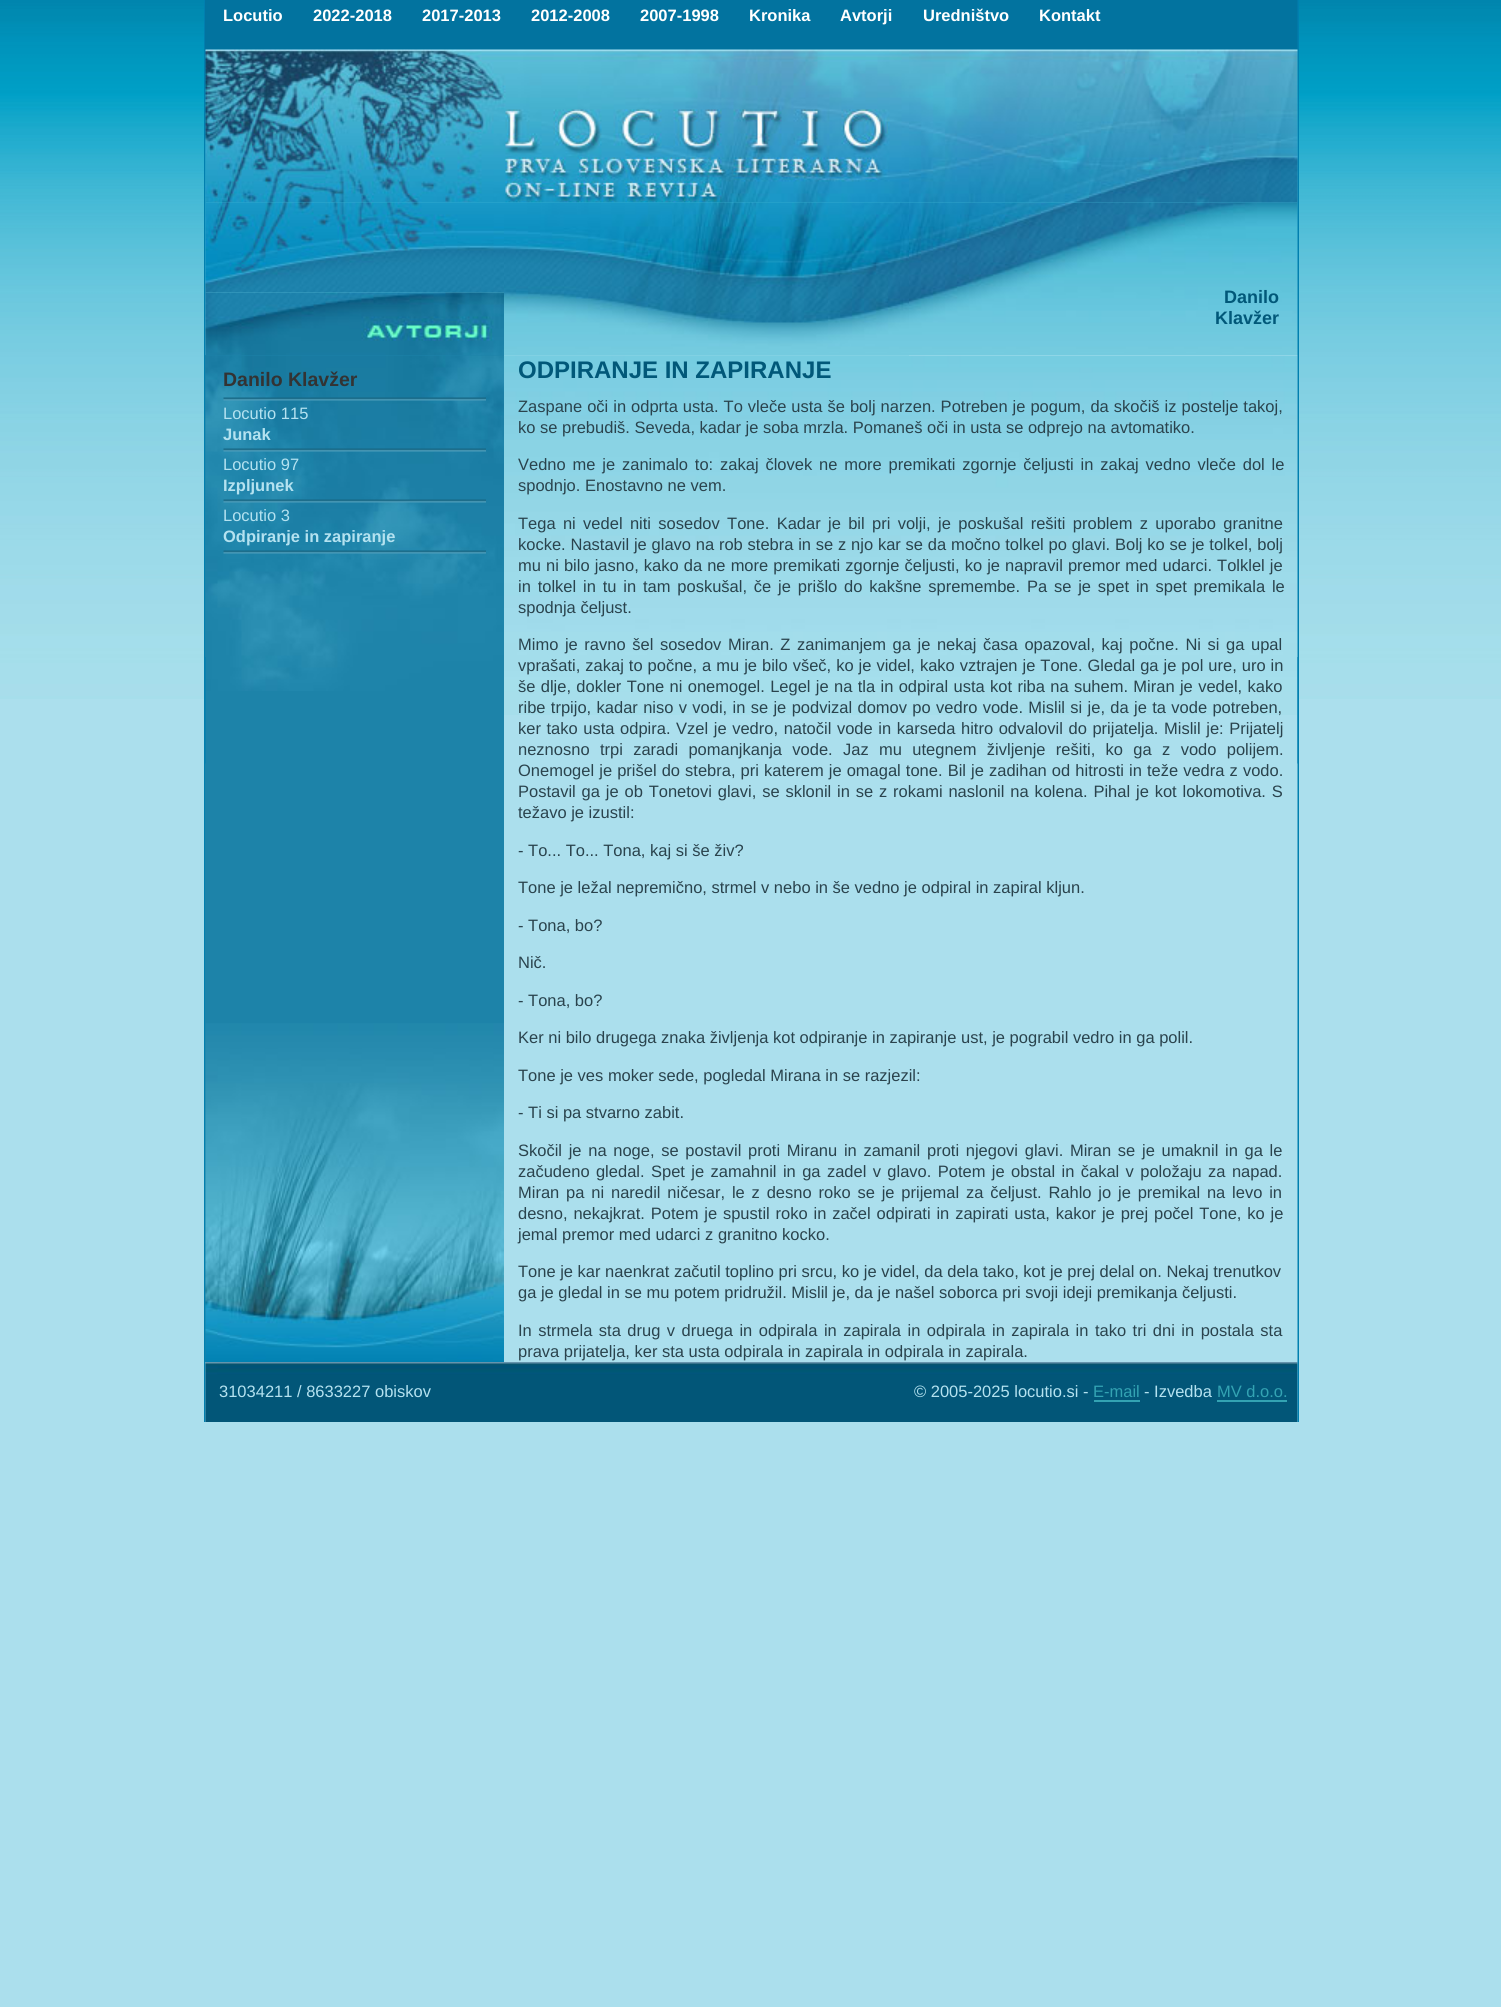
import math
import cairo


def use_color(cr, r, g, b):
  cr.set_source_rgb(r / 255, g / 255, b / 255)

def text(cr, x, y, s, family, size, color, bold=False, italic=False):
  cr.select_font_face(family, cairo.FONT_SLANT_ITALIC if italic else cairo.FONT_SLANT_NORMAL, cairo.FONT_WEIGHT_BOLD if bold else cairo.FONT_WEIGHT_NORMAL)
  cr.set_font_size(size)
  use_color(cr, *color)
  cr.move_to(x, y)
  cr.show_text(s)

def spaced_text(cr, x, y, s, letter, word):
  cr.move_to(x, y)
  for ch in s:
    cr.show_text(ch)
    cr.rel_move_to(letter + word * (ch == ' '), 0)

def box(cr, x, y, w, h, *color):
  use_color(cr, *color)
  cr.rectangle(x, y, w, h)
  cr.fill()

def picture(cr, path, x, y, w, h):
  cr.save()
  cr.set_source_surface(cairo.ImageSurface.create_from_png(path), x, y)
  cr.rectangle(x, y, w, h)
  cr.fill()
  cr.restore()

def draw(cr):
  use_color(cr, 171, 223, 237)
  cr.paint()
  picture(cr, "img_01.png", 0, 0, 1501, 699)
  picture(cr, "img_02.png", 204, 0, 2, 1422)
  box(cr, 205, 355, 299, 1007, 29, 131, 169)
  picture(cr, "img_10.png", 205, 355, 299, 336)
  picture(cr, "img_03.png", 205, 657, 1, 107)
  box(cr, 205, 0, 1093, 50, 2, 115, 159)
  picture(cr, "img_04.png", 205, 49, 704, 154)
  picture(cr, "img_09.png", 909, 202, 389, 153)
  box(cr, 504, 355, 794, 308, 169, 222, 236)
  picture(cr, "img_16.png", 504, 355, 794, 360)
  picture(cr, "img_17.png", 205, 1362, 1093, 60)
  picture(cr, "img_18.png", 1297, 0, 2, 1422)
  picture(cr, "img_05.png", 909, 49, 389, 154)
  picture(cr, "img_07.png", 205, 202, 299, 91)
  picture(cr, "img_06.png", 205, 292, 299, 63)
  picture(cr, "img_08.png", 504, 202, 405, 154)
  picture(cr, "img_11.png", 223, 397, 263, 4)
  picture(cr, "img_12.png", 223, 448, 263, 4)
  picture(cr, "img_13.png", 223, 499, 263, 4)
  picture(cr, "img_14.png", 223, 550, 263, 4)
  picture(cr, "img_15.png", 205, 1023, 299, 339)
  box(cr, 1094, 1400, 46, 2, 51, 163, 179)
  box(cr, 1217, 1400, 70, 2, 51, 163, 179)
  picture(cr, "img_19.png", 1297, 657, 1, 107)
  text(cr, 223, 21, "Locutio", "Liberation Sans", 16.5, (255, 255, 255), bold=True)
  text(cr, 313, 21, "2022-2018", "Liberation Sans", 16.5, (255, 255, 255), bold=True)
  text(cr, 422, 21, "2017-2013", "Liberation Sans", 16.5, (255, 255, 255), bold=True)
  text(cr, 531, 21, "2012-2008", "Liberation Sans", 16.5, (255, 255, 255), bold=True)
  text(cr, 640, 21, "2007-1998", "Liberation Sans", 16.5, (255, 255, 255), bold=True)
  text(cr, 749, 21, "Kronika", "Liberation Sans", 16.5, (255, 255, 255), bold=True)
  text(cr, 840, 21, "Avtorji", "Liberation Sans", 16.5, (255, 255, 255), bold=True)
  text(cr, 923, 21, "Uredništvo", "Liberation Sans", 16.5, (255, 255, 255), bold=True)
  text(cr, 1039, 21, "Kontakt", "Liberation Sans", 16.5, (255, 255, 255), bold=True)
  text(cr, 1224, 303, "Danilo", "Liberation Sans", 18, (1, 88, 121), bold=True)
  text(cr, 1215, 324, "Klavžer", "Liberation Sans", 18, (1, 88, 121), bold=True)
  text(cr, 223, 386, "Danilo Klavžer", "Liberation Sans", 19.5, (51, 51, 51), bold=True)
  text(cr, 223, 419, "Locutio 115", "Liberation Sans", 16.5, (180, 226, 240))
  text(cr, 223, 440, "Junak", "Liberation Sans", 16.5, (180, 226, 240), bold=True)
  text(cr, 223, 470, "Locutio 97", "Liberation Sans", 16.5, (180, 226, 240))
  text(cr, 223, 491, "Izpljunek", "Liberation Sans", 16.5, (180, 226, 240), bold=True)
  text(cr, 223, 521, "Locutio 3", "Liberation Sans", 16.5, (180, 226, 240))
  text(cr, 223, 542, "Odpiranje in zapiranje", "Liberation Sans", 16.5, (180, 226, 240), bold=True)
  text(cr, 518, 378, "ODPIRANJE IN ZAPIRANJE", "Liberation Sans", 24, (1, 88, 121), bold=True)
  cr.select_font_face("Liberation Sans")
  cr.set_font_size(16.5)
  use_color(cr, 42, 67, 77)
  spaced_text(cr, 518, 412, "Zaspane oči in odprta usta. To vleče usta še bolj narzen. Potreben je pogum, da skočiš iz postelje takoj,", 0, 0.4)
  text(cr, 518, 433, "ko se prebudiš. Seveda, kadar je soba mrzla. Pomaneš oči in usta se odprejo na avtomatiko.", "Liberation Sans", 16.5, (42, 67, 77))
  spaced_text(cr, 518, 470, "Vedno me je zanimalo to: zakaj človek ne more premikati zgornje čeljusti in zakaj vedno vleče dol le", 0, 2.25)
  text(cr, 518, 491, "spodnjo. Enostavno ne vem.", "Liberation Sans", 16.5, (42, 67, 77))
  spaced_text(cr, 518, 529, "Tega ni vedel niti sosedov Tone. Kadar je bil pri volji, je poskušal rešiti problem z uporabo granitne", 0, 2.75)
  spaced_text(cr, 518, 550, "kocke. Nastavil je glavo na rob stebra in se z njo kar se da močno tolkel po glavi. Bolj ko se je tolkel, bolj", 0, 0.2)
  spaced_text(cr, 518, 571, "mu ni bilo jasno, kako da ne more premikati zgornje čeljusti, ko je napravil premor med udarci. Tolklel je", 0, 0.5)
  spaced_text(cr, 518, 592, "in tolkel in tu in tam poskušal, če je prišlo do kakšne spremembe. Pa se je spet in spet premikala le", 0, 2.25)
  text(cr, 518, 613, "spodnja čeljust.", "Liberation Sans", 16.5, (42, 67, 77))
  spaced_text(cr, 518, 650, "Mimo je ravno šel sosedov Miran. Z zanimanjem ga je nekaj časa opazoval, kaj počne. Ni si ga upal", 0, 2)
  spaced_text(cr, 518, 671, "vprašati, zakaj to počne, a mu je bilo všeč, ko je videl, kako vztrajen je Tone. Gledal ga je pol ure, uro in", 0, 0.4)
  spaced_text(cr, 518, 692, "še dlje, dokler Tone ni onemogel. Legel je na tla in odpiral usta kot riba na suhem. Miran je vedel, kako", 0, 0.75)
  spaced_text(cr, 518, 713, "ribe trpijo, kadar niso v vodi, in se je podvizal domov po vedro vode. Mislil si je, da je ta vode potreben,", 0, 0.75)
  spaced_text(cr, 518, 734, "ker tako usta odpira. Vzel je vedro, natočil vode in karseda hitro odvalovil do prijatelja. Mislil je: Prijatelj", 0, 1)
  spaced_text(cr, 518, 755, "neznosno trpi zaradi pomanjkanja vode. Jaz mu utegnem življenje rešiti, ko ga z vodo polijem.", 0, 5.75)
  spaced_text(cr, 518, 776, "Onemogel je prišel do stebra, pri katerem je omagal tone. Bil je zadihan od hitrosti in teže vedra z vodo.", 0, 0.5)
  spaced_text(cr, 518, 797, "Postavil ga je ob Tonetovi glavi, se sklonil in se z rokami naslonil na kolena. Pihal je kot lokomotiva. S", 0, 1.25)
  text(cr, 518, 818, "težavo je izustil:", "Liberation Sans", 16.5, (42, 67, 77))
  text(cr, 518, 856, "- To... To... Tona, kaj si še živ?", "Liberation Sans", 16.5, (42, 67, 77))
  text(cr, 518, 893, "Tone je ležal nepremično, strmel v nebo in še vedno je odpiral in zapiral kljun.", "Liberation Sans", 16.5, (42, 67, 77))
  text(cr, 518, 931, "- Tona, bo?", "Liberation Sans", 16.5, (42, 67, 77))
  text(cr, 518, 968, "Nič.", "Liberation Sans", 16.5, (42, 67, 77))
  text(cr, 518, 1006, "- Tona, bo?", "Liberation Sans", 16.5, (42, 67, 77))
  text(cr, 518, 1043, "Ker ni bilo drugega znaka življenja kot odpiranje in zapiranje ust, je pograbil vedro in ga polil.", "Liberation Sans", 16.5, (42, 67, 77))
  text(cr, 518, 1081, "Tone je ves moker sede, pogledal Mirana in se razjezil:", "Liberation Sans", 16.5, (42, 67, 77))
  text(cr, 518, 1118, "- Ti si pa stvarno zabit.", "Liberation Sans", 16.5, (42, 67, 77))
  spaced_text(cr, 518, 1156, "Skočil je na noge, se postavil proti Miranu in zamanil proti njegovi glavi. Miran se je umaknil in ga le", 0, 2.1)
  spaced_text(cr, 518, 1177, "začudeno gledal. Spet je zamahnil in ga zadel v glavo. Potem je obstal in čakal v položaju za napad.", 0, 1.8)
  spaced_text(cr, 518, 1198, "Miran pa ni naredil ničesar, le z desno roko se je prijemal za čeljust. Rahlo jo je premikal na levo in", 0, 2.25)
  spaced_text(cr, 518, 1219, "desno, nekajkrat. Potem je spustil roko in začel odpirati in zapirati usta, kakor je prej počel Tone, ko je", 0, 1.25)
  text(cr, 518, 1240, "jemal premor med udarci z granitno kocko.", "Liberation Sans", 16.5, (42, 67, 77))
  text(cr, 518, 1277, "Tone je kar naenkrat začutil toplino pri srcu, ko je videl, da dela tako, kot je prej delal on. Nekaj trenutkov", "Liberation Sans", 16.5, (42, 67, 77))
  text(cr, 518, 1298, "ga je gledal in se mu potem pridružil. Mislil je, da je našel soborca pri svoji ideji premikanja čeljusti.", "Liberation Sans", 16.5, (42, 67, 77))
  spaced_text(cr, 518, 1336, "In strmela sta drug v druega in odpirala in zapirala in odpirala in zapirala in tako tri dni in postala sta", 0, 1.9)
  text(cr, 518, 1357, "prava prijatelja, ker sta usta odpirala in zapirala in odpirala in zapirala.", "Liberation Sans", 16.5, (42, 67, 77))
  text(cr, 219, 1397, "31034211 / 8633227 obiskov", "Liberation Sans", 16.5, (180, 226, 240))
  text(cr, 914, 1397, "© 2005-2025 locutio.si -", "Liberation Sans", 16.5, (180, 226, 240))
  text(cr, 1093, 1397, "E-mail", "Liberation Sans", 16.5, (51, 163, 179))
  text(cr, 1144, 1397, "- Izvedba", "Liberation Sans", 16.5, (180, 226, 240))
  text(cr, 1217, 1397, "MV d.o.o.", "Liberation Sans", 16.5, (51, 163, 179))


surface = cairo.ImageSurface(cairo.FORMAT_RGB24, 1501, 2007)
cr = cairo.Context(surface)
options = cairo.FontOptions()
options.set_hint_metrics(cairo.HINT_METRICS_OFF)
options.set_hint_style(cairo.HINT_STYLE_NONE)
cr.set_font_options(options)
cr.set_miter_limit(4)
draw(cr)
surface.write_to_png("out.png")
